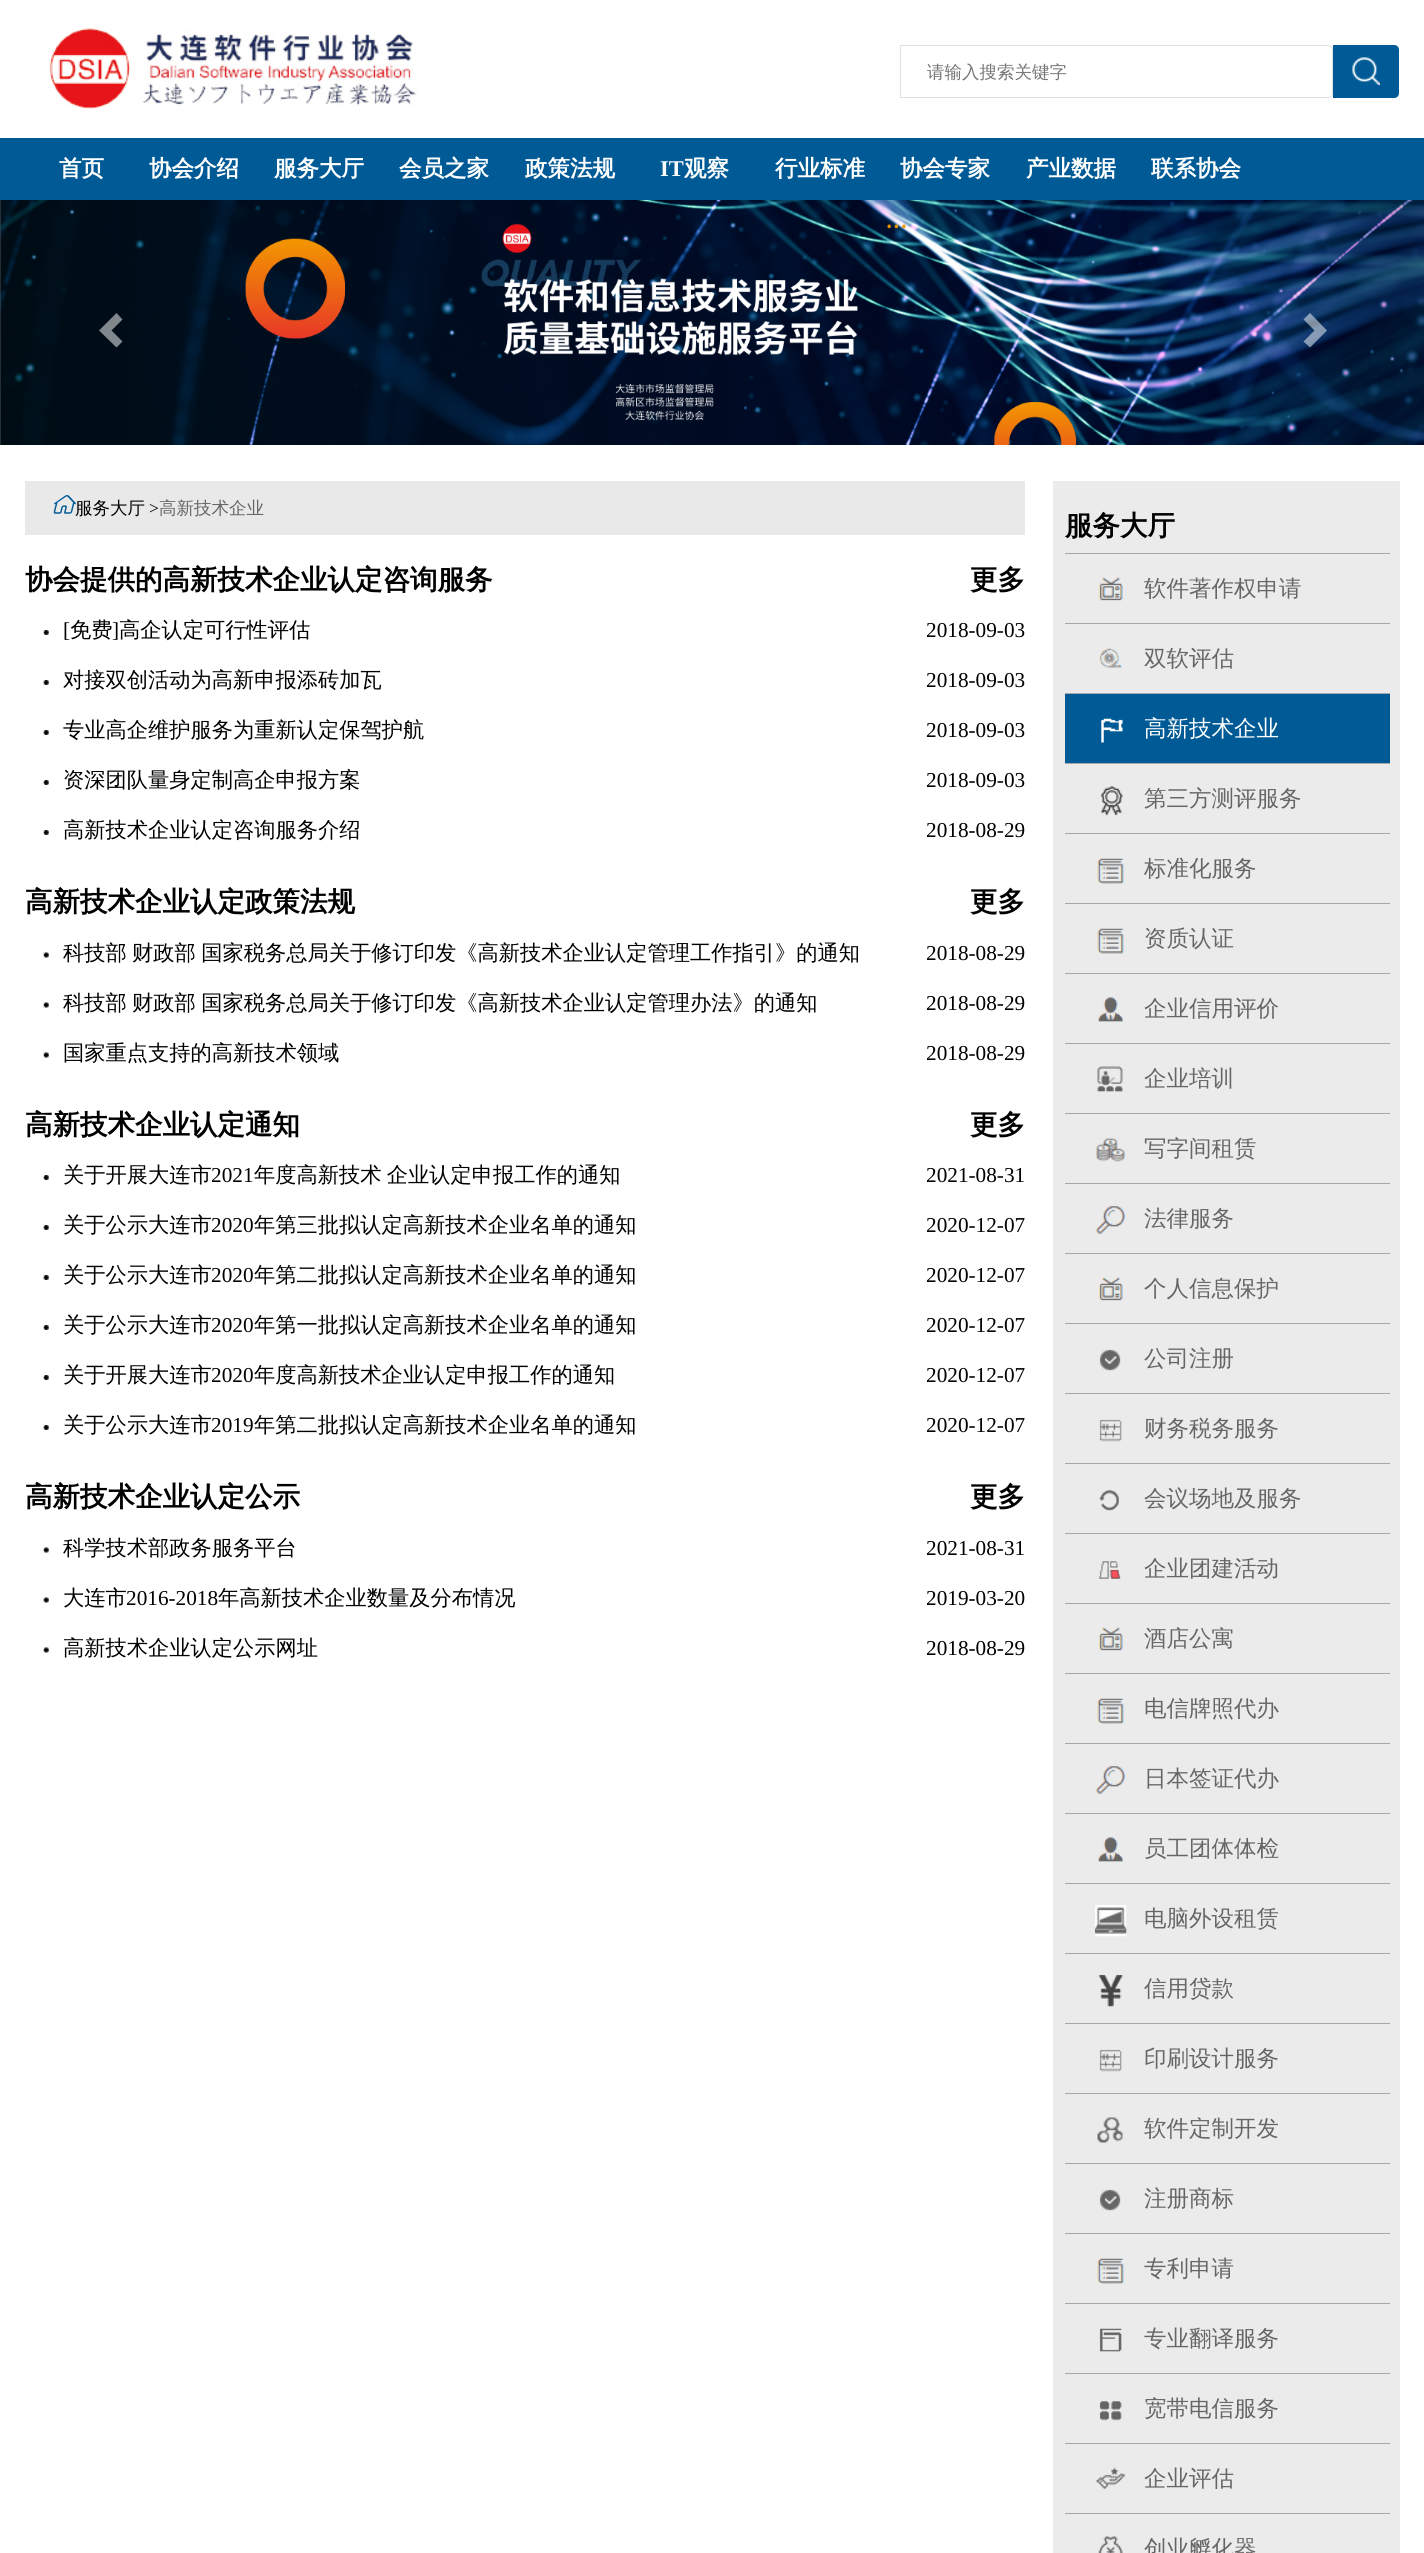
import math
import cairo


def use_color(cr, r, g, b):
  cr.set_source_rgb(r / 255, g / 255, b / 255)

def text(cr, x, y, s, family, size, color, bold=False, italic=False):
  cr.select_font_face(family, cairo.FONT_SLANT_ITALIC if italic else cairo.FONT_SLANT_NORMAL, cairo.FONT_WEIGHT_BOLD if bold else cairo.FONT_WEIGHT_NORMAL)
  cr.set_font_size(size)
  use_color(cr, *color)
  cr.move_to(x, y)
  cr.show_text(s)

def spaced_text(cr, x, y, s, letter, word):
  cr.move_to(x, y)
  for ch in s:
    cr.show_text(ch)
    cr.rel_move_to(letter + word * (ch == ' '), 0)

def box(cr, x, y, w, h, *color):
  use_color(cr, *color)
  cr.rectangle(x, y, w, h)
  cr.fill()

def picture(cr, path, x, y, w, h):
  cr.save()
  cr.set_source_surface(cairo.ImageSurface.create_from_png(path), x, y)
  cr.rectangle(x, y, w, h)
  cr.fill()
  cr.restore()

def draw(cr):
  use_color(cr, 255, 255, 255)
  cr.paint()
  picture(cr, "img_01.png", 49, 28, 368, 81)
  cr.new_path()
  cr.move_to(900.5, 45.5)
  cr.line_to(1328, 45.5)
  cr.curve_to(1330.5, 45.5, 1332.5, 47.5, 1332.5, 50)
  cr.line_to(1332.5, 93)
  cr.curve_to(1332.5, 95.5, 1330.5, 97.5, 1328, 97.5)
  cr.line_to(900.5, 97.5)
  cr.close_path()
  use_color(cr, 224, 224, 224)
  cr.set_line_width(1)
  cr.stroke()
  use_color(cr, 0, 90, 150)
  cr.new_path()
  cr.move_to(1333, 45)
  cr.line_to(1394, 45)
  cr.curve_to(1397, 45, 1399, 47, 1399, 50)
  cr.line_to(1399, 93)
  cr.curve_to(1399, 96, 1397, 98, 1394, 98)
  cr.line_to(1333, 98)
  cr.close_path()
  cr.fill()
  picture(cr, "img_02.png", 1352, 57, 28, 28)
  box(cr, 0, 138, 1424, 62, 0, 90, 150)
  picture(cr, "img_03.png", 0, 200, 1424, 245)
  use_color(cr, 128, 135, 141)
  cr.new_path()
  cr.move_to(122.5, 319.5)
  cr.line_to(111.5, 330.5)
  cr.line_to(122.5, 341.5)
  cr.line_to(116.5, 347.5)
  cr.line_to(99, 330.5)
  cr.line_to(116.5, 313)
  cr.close_path()
  cr.fill()
  cr.set_source_rgba(1, 1, 1, 0.5)
  cr.new_path()
  cr.move_to(1327, 330.5)
  cr.line_to(1310, 347.5)
  cr.line_to(1303.5, 341.5)
  cr.line_to(1314.5, 330.5)
  cr.line_to(1303.5, 319.5)
  cr.line_to(1310, 313)
  cr.close_path()
  cr.fill()
  box(cr, 25, 481, 1000, 54, 234, 233, 233)
  picture(cr, "img_04.png", 53, 495, 23, 19)
  picture(cr, "img_05.png", 43, 630, 6, 5)
  picture(cr, "img_05.png", 43, 680, 6, 5)
  picture(cr, "img_05.png", 43, 730, 6, 5)
  picture(cr, "img_05.png", 43, 780, 6, 5)
  picture(cr, "img_05.png", 43, 830, 6, 5)
  picture(cr, "img_06.png", 43, 952, 6, 6)
  picture(cr, "img_06.png", 43, 1002, 6, 6)
  picture(cr, "img_06.png", 43, 1052, 6, 6)
  picture(cr, "img_05.png", 43, 1175, 6, 5)
  picture(cr, "img_05.png", 43, 1225, 6, 5)
  picture(cr, "img_05.png", 43, 1275, 6, 5)
  picture(cr, "img_05.png", 43, 1325, 6, 5)
  picture(cr, "img_05.png", 43, 1375, 6, 5)
  picture(cr, "img_05.png", 43, 1425, 6, 5)
  picture(cr, "img_06.png", 43, 1547, 6, 6)
  picture(cr, "img_06.png", 43, 1597, 6, 6)
  picture(cr, "img_06.png", 43, 1647, 6, 6)
  box(cr, 1053, 481, 347, 2072, 235, 235, 235)
  box(cr, 1065, 553, 325, 1, 168, 168, 168)
  box(cr, 1065, 623, 325, 1, 168, 168, 168)
  picture(cr, "img_07.png", 1098, 577, 25, 24)
  box(cr, 1065, 693, 325, 1, 168, 168, 168)
  picture(cr, "img_08.png", 1099, 648, 23, 20)
  box(cr, 1065, 694, 325, 69, 0, 90, 150)
  box(cr, 1065, 763, 325, 1, 168, 168, 168)
  picture(cr, "img_09.png", 1101, 718, 22, 25)
  box(cr, 1065, 833, 325, 1, 168, 168, 168)
  picture(cr, "img_10.png", 1101, 786, 22, 30)
  box(cr, 1065, 903, 325, 1, 168, 168, 168)
  picture(cr, "img_11.png", 1097, 858, 27, 26)
  box(cr, 1065, 973, 325, 1, 168, 168, 168)
  picture(cr, "img_11.png", 1097, 928, 27, 26)
  box(cr, 1065, 1043, 325, 1, 168, 168, 168)
  picture(cr, "img_12.png", 1098, 997, 25, 25)
  box(cr, 1065, 1113, 325, 1, 168, 168, 168)
  picture(cr, "img_13.png", 1097, 1066, 26, 26)
  box(cr, 1065, 1183, 325, 1, 168, 168, 168)
  picture(cr, "img_14.png", 1096, 1137, 30, 25)
  box(cr, 1065, 1253, 325, 1, 168, 168, 168)
  picture(cr, "img_15.png", 1096, 1206, 30, 28)
  box(cr, 1065, 1323, 325, 1, 168, 168, 168)
  picture(cr, "img_16.png", 1098, 1277, 25, 24)
  box(cr, 1065, 1393, 325, 1, 168, 168, 168)
  picture(cr, "img_17.png", 1099, 1349, 22, 22)
  box(cr, 1065, 1463, 325, 1, 168, 168, 168)
  picture(cr, "img_18.png", 1099, 1419, 23, 23)
  box(cr, 1065, 1533, 325, 1, 168, 168, 168)
  picture(cr, "img_19.png", 1098, 1489, 21, 22)
  box(cr, 1065, 1603, 325, 1, 168, 168, 168)
  picture(cr, "img_20.png", 1098, 1561, 23, 18)
  box(cr, 1065, 1673, 325, 1, 168, 168, 168)
  picture(cr, "img_16.png", 1098, 1627, 25, 24)
  box(cr, 1065, 1743, 325, 1, 168, 168, 168)
  picture(cr, "img_11.png", 1097, 1698, 27, 26)
  box(cr, 1065, 1813, 325, 1, 168, 168, 168)
  picture(cr, "img_15.png", 1096, 1766, 30, 28)
  box(cr, 1065, 1883, 325, 1, 168, 168, 168)
  picture(cr, "img_12.png", 1098, 1837, 25, 25)
  box(cr, 1065, 1953, 325, 1, 168, 168, 168)
  picture(cr, "img_21.png", 1095, 1905, 32, 32)
  box(cr, 1065, 2023, 325, 1, 168, 168, 168)
  picture(cr, "img_22.png", 1098, 1975, 25, 32)
  box(cr, 1065, 2093, 325, 1, 168, 168, 168)
  picture(cr, "img_23.png", 1099, 2049, 23, 23)
  box(cr, 1065, 2163, 325, 1, 168, 168, 168)
  picture(cr, "img_24.png", 1097, 2117, 26, 26)
  box(cr, 1065, 2233, 325, 1, 168, 168, 168)
  picture(cr, "img_17.png", 1099, 2189, 22, 22)
  box(cr, 1065, 2303, 325, 1, 168, 168, 168)
  picture(cr, "img_11.png", 1097, 2258, 27, 26)
  box(cr, 1065, 2373, 325, 1, 168, 168, 168)
  picture(cr, "img_25.png", 1099, 2328, 23, 24)
  box(cr, 1065, 2443, 325, 1, 168, 168, 168)
  picture(cr, "img_26.png", 1099, 2401, 23, 20)
  box(cr, 1065, 2513, 325, 1, 168, 168, 168)
  picture(cr, "img_27.png", 1096, 2467, 30, 22)
  picture(cr, "img_28.png", 1098, 2536, 25, 17)
  text(cr, 927, 78, "请输入搜索关键字", "WenQuanYi Zen Hei Medium", 17.5, (117, 117, 117))
  text(cr, 59, 176, "首页", "WenQuanYi Zen Hei", 22.5, (255, 255, 255), bold=True)
  text(cr, 149, 176, "协会介绍", "WenQuanYi Zen Hei", 22.5, (255, 255, 255), bold=True)
  text(cr, 274, 176, "服务大厅", "WenQuanYi Zen Hei", 22.5, (255, 255, 255), bold=True)
  text(cr, 399, 176, "会员之家", "WenQuanYi Zen Hei", 22.5, (255, 255, 255), bold=True)
  text(cr, 525, 176, "政策法规", "WenQuanYi Zen Hei", 22.5, (255, 255, 255), bold=True)
  text(cr, 660, 176, "IT", "Liberation Serif", 22.5, (255, 255, 255), bold=True)
  text(cr, 684, 176, "观察", "WenQuanYi Zen Hei", 22.5, (255, 255, 255), bold=True)
  text(cr, 775, 176, "行业标准", "WenQuanYi Zen Hei", 22.5, (255, 255, 255), bold=True)
  text(cr, 900, 176, "协会专家", "WenQuanYi Zen Hei", 22.5, (255, 255, 255), bold=True)
  text(cr, 1026, 176, "产业数据", "WenQuanYi Zen Hei", 22.5, (255, 255, 255), bold=True)
  text(cr, 1151, 176, "联系协会", "WenQuanYi Zen Hei", 22.5, (255, 255, 255), bold=True)
  text(cr, 75, 514, "服务大厅", "WenQuanYi Zen Hei Medium", 17.5, (0, 0, 0))
  text(cr, 149, 514, ">", "Liberation Serif", 17.5, (0, 0, 0))
  text(cr, 159, 514, "高新技术企业", "WenQuanYi Zen Hei Medium", 17.5, (102, 102, 102))
  text(cr, 25, 589, "协会提供的高新技术企业认定咨询服务", "WenQuanYi Zen Hei", 27.5, (0, 0, 0), bold=True)
  text(cr, 970, 589, "更多", "WenQuanYi Zen Hei", 27.5, (0, 0, 0), bold=True)
  text(cr, 63, 637, "[", "Liberation Serif", 21.25, (0, 0, 0))
  text(cr, 70, 637, "免费", "WenQuanYi Zen Hei Medium", 21.25, (0, 0, 0))
  text(cr, 112, 637, "]", "Liberation Serif", 21.25, (0, 0, 0))
  text(cr, 119, 637, "高企认定可行性评估", "WenQuanYi Zen Hei Medium", 21.25, (0, 0, 0))
  text(cr, 926, 637, "2018-09-03", "Liberation Serif", 21.25, (0, 0, 0))
  text(cr, 63, 687, "对接双创活动为高新申报添砖加瓦", "WenQuanYi Zen Hei Medium", 21.25, (0, 0, 0))
  text(cr, 926, 687, "2018-09-03", "Liberation Serif", 21.25, (0, 0, 0))
  text(cr, 63, 737, "专业高企维护服务为重新认定保驾护航", "WenQuanYi Zen Hei Medium", 21.25, (0, 0, 0))
  text(cr, 926, 737, "2018-09-03", "Liberation Serif", 21.25, (0, 0, 0))
  text(cr, 63, 787, "资深团队量身定制高企申报方案", "WenQuanYi Zen Hei Medium", 21.25, (0, 0, 0))
  text(cr, 926, 787, "2018-09-03", "Liberation Serif", 21.25, (0, 0, 0))
  text(cr, 63, 837, "高新技术企业认定咨询服务介绍", "WenQuanYi Zen Hei Medium", 21.25, (0, 0, 0))
  text(cr, 926, 837, "2018-08-29", "Liberation Serif", 21.25, (0, 0, 0))
  text(cr, 25, 911, "高新技术企业认定政策法规", "WenQuanYi Zen Hei", 27.5, (0, 0, 0), bold=True)
  text(cr, 970, 911, "更多", "WenQuanYi Zen Hei", 27.5, (0, 0, 0), bold=True)
  cr.select_font_face("WenQuanYi Zen Hei Medium")
  cr.set_font_size(21.25)
  spaced_text(cr, 63, 960, "科技部 财政部 国家税务总局关于修订印发《高新技术企业认定管理工作指引》的通知", 0, -1)
  text(cr, 926, 960, "2018-08-29", "Liberation Serif", 21.25, (0, 0, 0))
  cr.select_font_face("WenQuanYi Zen Hei Medium")
  spaced_text(cr, 63, 1010, "科技部 财政部 国家税务总局关于修订印发《高新技术企业认定管理办法》的通知", 0, -1)
  text(cr, 926, 1010, "2018-08-29", "Liberation Serif", 21.25, (0, 0, 0))
  text(cr, 63, 1060, "国家重点支持的高新技术领域", "WenQuanYi Zen Hei Medium", 21.25, (0, 0, 0))
  text(cr, 926, 1060, "2018-08-29", "Liberation Serif", 21.25, (0, 0, 0))
  text(cr, 25, 1134, "高新技术企业认定通知", "WenQuanYi Zen Hei", 27.5, (0, 0, 0), bold=True)
  text(cr, 970, 1134, "更多", "WenQuanYi Zen Hei", 27.5, (0, 0, 0), bold=True)
  text(cr, 63, 1182, "关于开展大连市", "WenQuanYi Zen Hei Medium", 21.25, (0, 0, 0))
  text(cr, 211, 1182, "2021", "Liberation Serif", 21.25, (0, 0, 0))
  cr.select_font_face("WenQuanYi Zen Hei Medium")
  spaced_text(cr, 254, 1182, "年度高新技术 企业认定申报工作的通知", 0, -1)
  text(cr, 926, 1182, "2021-08-31", "Liberation Serif", 21.25, (0, 0, 0))
  text(cr, 63, 1232, "关于公示大连市", "WenQuanYi Zen Hei Medium", 21.25, (0, 0, 0))
  text(cr, 211, 1232, "2020", "Liberation Serif", 21.25, (0, 0, 0))
  text(cr, 254, 1232, "年第三批拟认定高新技术企业名单的通知", "WenQuanYi Zen Hei Medium", 21.25, (0, 0, 0))
  text(cr, 926, 1232, "2020-12-07", "Liberation Serif", 21.25, (0, 0, 0))
  text(cr, 63, 1282, "关于公示大连市", "WenQuanYi Zen Hei Medium", 21.25, (0, 0, 0))
  text(cr, 211, 1282, "2020", "Liberation Serif", 21.25, (0, 0, 0))
  text(cr, 254, 1282, "年第二批拟认定高新技术企业名单的通知", "WenQuanYi Zen Hei Medium", 21.25, (0, 0, 0))
  text(cr, 926, 1282, "2020-12-07", "Liberation Serif", 21.25, (0, 0, 0))
  text(cr, 63, 1332, "关于公示大连市", "WenQuanYi Zen Hei Medium", 21.25, (0, 0, 0))
  text(cr, 211, 1332, "2020", "Liberation Serif", 21.25, (0, 0, 0))
  text(cr, 254, 1332, "年第一批拟认定高新技术企业名单的通知", "WenQuanYi Zen Hei Medium", 21.25, (0, 0, 0))
  text(cr, 926, 1332, "2020-12-07", "Liberation Serif", 21.25, (0, 0, 0))
  text(cr, 63, 1382, "关于开展大连市", "WenQuanYi Zen Hei Medium", 21.25, (0, 0, 0))
  text(cr, 211, 1382, "2020", "Liberation Serif", 21.25, (0, 0, 0))
  text(cr, 254, 1382, "年度高新技术企业认定申报工作的通知", "WenQuanYi Zen Hei Medium", 21.25, (0, 0, 0))
  text(cr, 926, 1382, "2020-12-07", "Liberation Serif", 21.25, (0, 0, 0))
  text(cr, 63, 1432, "关于公示大连市", "WenQuanYi Zen Hei Medium", 21.25, (0, 0, 0))
  text(cr, 211, 1432, "2019", "Liberation Serif", 21.25, (0, 0, 0))
  text(cr, 254, 1432, "年第二批拟认定高新技术企业名单的通知", "WenQuanYi Zen Hei Medium", 21.25, (0, 0, 0))
  text(cr, 926, 1432, "2020-12-07", "Liberation Serif", 21.25, (0, 0, 0))
  text(cr, 25, 1506, "高新技术企业认定公示", "WenQuanYi Zen Hei", 27.5, (0, 0, 0), bold=True)
  text(cr, 970, 1506, "更多", "WenQuanYi Zen Hei", 27.5, (0, 0, 0), bold=True)
  text(cr, 63, 1555, "科学技术部政务服务平台", "WenQuanYi Zen Hei Medium", 21.25, (0, 0, 0))
  text(cr, 926, 1555, "2021-08-31", "Liberation Serif", 21.25, (0, 0, 0))
  text(cr, 63, 1605, "大连市", "WenQuanYi Zen Hei Medium", 21.25, (0, 0, 0))
  text(cr, 126, 1605, "2016-2018", "Liberation Serif", 21.25, (0, 0, 0))
  text(cr, 218, 1605, "年高新技术企业数量及分布情况", "WenQuanYi Zen Hei Medium", 21.25, (0, 0, 0))
  text(cr, 926, 1605, "2019-03-20", "Liberation Serif", 21.25, (0, 0, 0))
  text(cr, 63, 1655, "高新技术企业认定公示网址", "WenQuanYi Zen Hei Medium", 21.25, (0, 0, 0))
  text(cr, 926, 1655, "2018-08-29", "Liberation Serif", 21.25, (0, 0, 0))
  text(cr, 1065, 535, "服务大厅", "WenQuanYi Zen Hei", 27.5, (0, 0, 0), bold=True)
  text(cr, 1144, 596, "软件著作权申请", "WenQuanYi Zen Hei Medium", 22.5, (102, 102, 102))
  text(cr, 1144, 666, "双软评估", "WenQuanYi Zen Hei Medium", 22.5, (102, 102, 102))
  text(cr, 1144, 736, "高新技术企业", "WenQuanYi Zen Hei Medium", 22.5, (255, 255, 255))
  text(cr, 1144, 806, "第三方测评服务", "WenQuanYi Zen Hei Medium", 22.5, (102, 102, 102))
  text(cr, 1144, 876, "标准化服务", "WenQuanYi Zen Hei Medium", 22.5, (102, 102, 102))
  text(cr, 1144, 946, "资质认证", "WenQuanYi Zen Hei Medium", 22.5, (102, 102, 102))
  text(cr, 1144, 1016, "企业信用评价", "WenQuanYi Zen Hei Medium", 22.5, (102, 102, 102))
  text(cr, 1144, 1086, "企业培训", "WenQuanYi Zen Hei Medium", 22.5, (102, 102, 102))
  text(cr, 1144, 1156, "写字间租赁", "WenQuanYi Zen Hei Medium", 22.5, (102, 102, 102))
  text(cr, 1144, 1226, "法律服务", "WenQuanYi Zen Hei Medium", 22.5, (102, 102, 102))
  text(cr, 1144, 1296, "个人信息保护", "WenQuanYi Zen Hei Medium", 22.5, (102, 102, 102))
  text(cr, 1144, 1366, "公司注册", "WenQuanYi Zen Hei Medium", 22.5, (102, 102, 102))
  text(cr, 1144, 1436, "财务税务服务", "WenQuanYi Zen Hei Medium", 22.5, (102, 102, 102))
  text(cr, 1144, 1506, "会议场地及服务", "WenQuanYi Zen Hei Medium", 22.5, (102, 102, 102))
  text(cr, 1144, 1576, "企业团建活动", "WenQuanYi Zen Hei Medium", 22.5, (102, 102, 102))
  text(cr, 1144, 1646, "酒店公寓", "WenQuanYi Zen Hei Medium", 22.5, (102, 102, 102))
  text(cr, 1144, 1716, "电信牌照代办", "WenQuanYi Zen Hei Medium", 22.5, (102, 102, 102))
  text(cr, 1144, 1786, "日本签证代办", "WenQuanYi Zen Hei Medium", 22.5, (102, 102, 102))
  text(cr, 1144, 1856, "员工团体体检", "WenQuanYi Zen Hei Medium", 22.5, (102, 102, 102))
  text(cr, 1144, 1926, "电脑外设租赁", "WenQuanYi Zen Hei Medium", 22.5, (102, 102, 102))
  text(cr, 1144, 1996, "信用贷款", "WenQuanYi Zen Hei Medium", 22.5, (102, 102, 102))
  text(cr, 1144, 2066, "印刷设计服务", "WenQuanYi Zen Hei Medium", 22.5, (102, 102, 102))
  text(cr, 1144, 2136, "软件定制开发", "WenQuanYi Zen Hei Medium", 22.5, (102, 102, 102))
  text(cr, 1144, 2206, "注册商标", "WenQuanYi Zen Hei Medium", 22.5, (102, 102, 102))
  text(cr, 1144, 2276, "专利申请", "WenQuanYi Zen Hei Medium", 22.5, (102, 102, 102))
  text(cr, 1144, 2346, "专业翻译服务", "WenQuanYi Zen Hei Medium", 22.5, (102, 102, 102))
  text(cr, 1144, 2416, "宽带电信服务", "WenQuanYi Zen Hei Medium", 22.5, (102, 102, 102))
  text(cr, 1144, 2486, "企业评估", "WenQuanYi Zen Hei Medium", 22.5, (102, 102, 102))
  text(cr, 1144, 2556, "创业孵化器", "WenQuanYi Zen Hei Medium", 22.5, (102, 102, 102))


surface = cairo.ImageSurface(cairo.FORMAT_RGB24, 1424, 2553)
cr = cairo.Context(surface)
options = cairo.FontOptions()
options.set_hint_metrics(cairo.HINT_METRICS_OFF)
options.set_hint_style(cairo.HINT_STYLE_NONE)
cr.set_font_options(options)
cr.set_miter_limit(4)
draw(cr)
surface.write_to_png("out.png")
